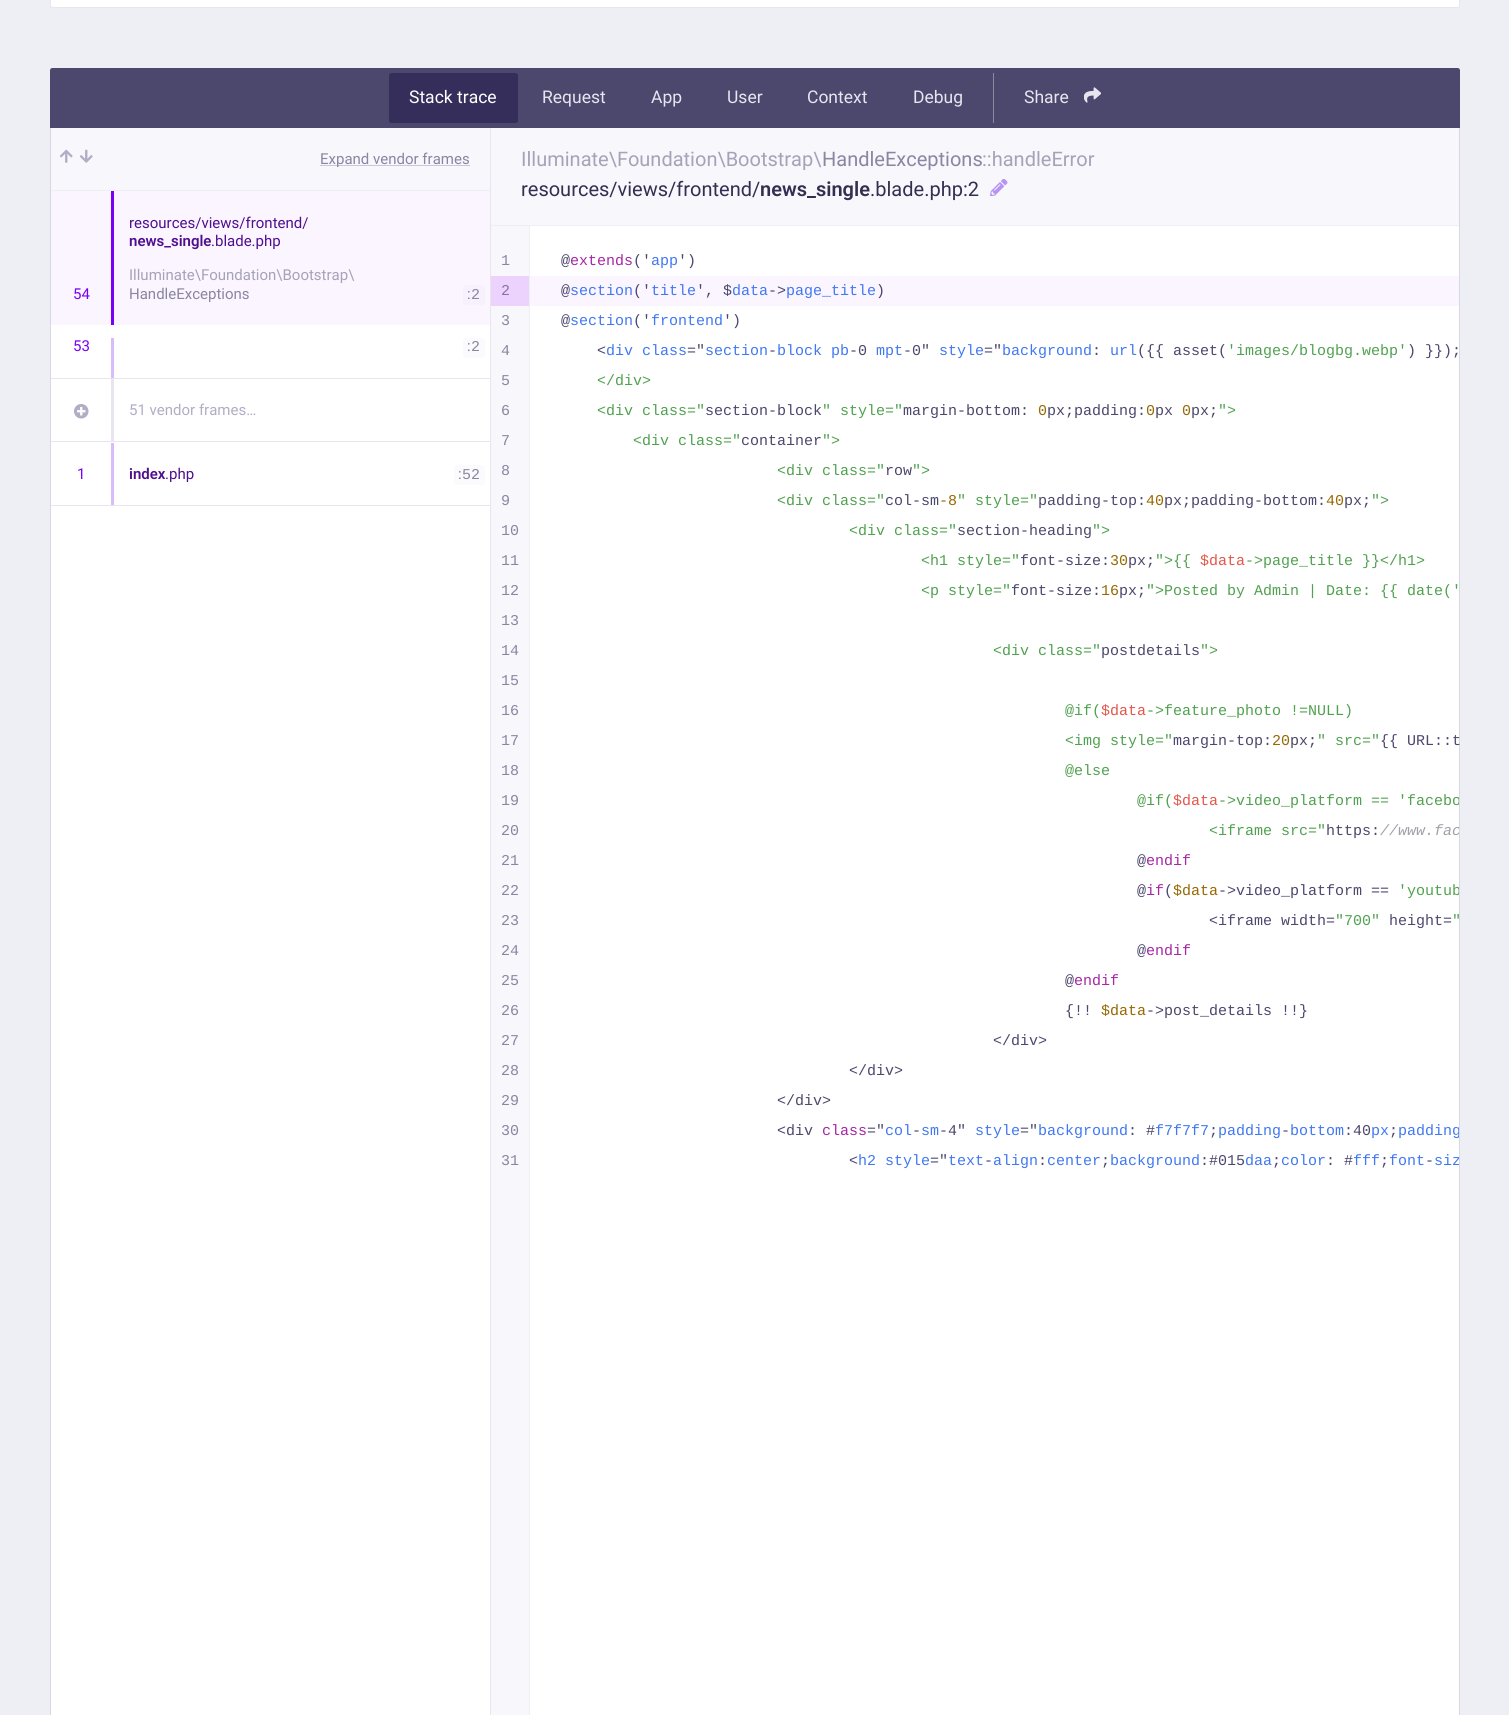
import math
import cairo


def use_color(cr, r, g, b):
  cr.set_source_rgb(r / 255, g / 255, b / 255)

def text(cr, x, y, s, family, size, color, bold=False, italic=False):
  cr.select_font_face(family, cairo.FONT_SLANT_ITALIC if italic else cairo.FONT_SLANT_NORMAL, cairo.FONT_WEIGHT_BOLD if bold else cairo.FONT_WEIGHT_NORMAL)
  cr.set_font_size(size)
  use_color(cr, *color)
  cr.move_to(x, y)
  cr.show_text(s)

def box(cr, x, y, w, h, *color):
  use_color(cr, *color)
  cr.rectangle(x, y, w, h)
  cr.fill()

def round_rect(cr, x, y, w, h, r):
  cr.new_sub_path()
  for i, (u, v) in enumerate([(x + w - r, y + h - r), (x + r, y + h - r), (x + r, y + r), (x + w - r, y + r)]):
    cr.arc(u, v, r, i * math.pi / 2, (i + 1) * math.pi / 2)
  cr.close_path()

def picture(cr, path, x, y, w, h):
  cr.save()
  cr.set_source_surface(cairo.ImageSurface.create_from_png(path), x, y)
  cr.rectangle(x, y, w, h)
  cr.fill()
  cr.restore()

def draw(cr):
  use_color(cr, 238, 238, 245)
  cr.paint()
  use_color(cr, 255, 255, 255)
  round_rect(cr, 50, -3, 1410, 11, 2.5)
  cr.fill()
  round_rect(cr, 50.5, -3.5, 1409, 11, 2)
  cr.set_source_rgba(0.098, 0, 0.392, 0.1)
  cr.set_line_width(1)
  cr.stroke()
  use_color(cr, 75, 71, 109)
  cr.new_path()
  cr.move_to(52.5, 68)
  cr.line_to(1457.5, 68)
  cr.curve_to(1459, 68, 1460, 69, 1460, 70.5)
  cr.line_to(1460, 128)
  cr.line_to(50, 128)
  cr.line_to(50, 70.5)
  cr.curve_to(50, 69, 51, 68, 52.5, 68)
  cr.close_path()
  cr.fill()
  use_color(cr, 53, 46, 90)
  round_rect(cr, 389, 73, 129, 50, 2.5)
  cr.fill()
  box(cr, 993, 73, 1, 50, 142, 137, 162)
  picture(cr, "img_01.png", 1084, 87, 17, 16)
  use_color(cr, 217, 214, 231)
  cr.new_path()
  cr.move_to(1460, 128)
  cr.line_to(1460, 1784)
  cr.line_to(1459, 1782)
  cr.line_to(1459, 128)
  cr.close_path()
  cr.fill()
  cr.new_path()
  cr.move_to(50, 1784)
  cr.line_to(50, 128)
  cr.line_to(51, 128)
  cr.line_to(51, 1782)
  cr.close_path()
  cr.fill()
  box(cr, 51, 325, 439, 1390, 255, 255, 255)
  box(cr, 490, 128, 1, 1587, 232, 229, 239)
  box(cr, 51, 128, 439, 62, 247, 247, 252)
  picture(cr, "img_02.png", 60, 149, 13, 14)
  picture(cr, "img_03.png", 79, 149, 14, 14)
  box(cr, 320, 165, 150, 1, 202, 198, 222)
  box(cr, 51, 378, 439, 1, 232, 229, 239)
  box(cr, 51, 191, 439, 134, 251, 245, 255)
  box(cr, 111, 191, 3, 134, 121, 0, 245)
  use_color(cr, 247, 241, 253)
  round_rect(cr, 463, 285, 22, 20, 2.5)
  cr.fill()
  box(cr, 111, 338, 3, 40, 214, 188, 250)
  use_color(cr, 251, 251, 253)
  round_rect(cr, 463, 338, 22, 20, 2.5)
  cr.fill()
  box(cr, 51, 441, 439, 1, 232, 229, 239)
  picture(cr, "img_04.png", 74, 404, 15, 15)
  box(cr, 111, 379, 3, 62, 232, 229, 239)
  box(cr, 51, 505, 439, 1, 232, 229, 239)
  box(cr, 111, 443, 3, 62, 214, 188, 250)
  use_color(cr, 251, 251, 253)
  round_rect(cr, 454, 465, 31, 20, 2.5)
  cr.fill()
  box(cr, 491, 128, 968, 97, 247, 247, 252)
  picture(cr, "img_05.png", 990, 179, 18, 17)
  box(cr, 530, 226, 929, 1489, 255, 255, 255)
  box(cr, 491, 226, 38, 1489, 247, 247, 252)
  box(cr, 491, 276, 38, 30, 236, 211, 253)
  box(cr, 530, 276, 929, 30, 251, 245, 255)
  text(cr, 409, 103, "Stack trace", "Roboto", 17.5, (255, 255, 255))
  text(cr, 542, 103, "Request", "Roboto", 17.5, (232, 229, 239))
  text(cr, 651, 103, "App", "Roboto", 17.5, (232, 229, 239))
  text(cr, 727, 103, "User", "Roboto", 17.5, (232, 229, 239))
  text(cr, 807, 103, "Context", "Roboto", 17.5, (232, 229, 239))
  text(cr, 913, 103, "Debug", "Roboto", 17.5, (232, 229, 239))
  text(cr, 1024, 103, "Share", "Roboto", 17.5, (232, 229, 239))
  text(cr, 320, 164, "Expand vendor frames", "Roboto", 15, (138, 133, 161))
  text(cr, 73, 299, "54", "Roboto", 15, (121, 0, 245))
  text(cr, 129, 228, "resources/views/frontend/", "Roboto", 15, (79, 15, 143))
  text(cr, 129, 246, "news_single", "Roboto SemiBold", 15, (79, 15, 143))
  text(cr, 211, 246, ".blade.php", "Roboto", 15, (79, 15, 143))
  text(cr, 129, 280, "Illuminate\\Foundation\\Bootstrap\\", "Roboto", 15, (166, 162, 184))
  text(cr, 129, 299, "HandleExceptions", "Roboto", 15, (138, 133, 161))
  text(cr, 467, 299, ":", "Roboto", 15, (138, 133, 161))
  text(cr, 471, 299, "2", "Liberation Mono", 15, (138, 133, 161))
  text(cr, 73, 351, "53", "Roboto", 15, (121, 0, 245))
  text(cr, 467, 351, ":", "Roboto", 15, (138, 133, 161))
  text(cr, 471, 351, "2", "Liberation Mono", 15, (138, 133, 161))
  text(cr, 129, 415, "51 vendor frames…", "Roboto", 15, (176, 173, 197))
  text(cr, 77, 479, "1", "Roboto", 15, (121, 0, 245))
  text(cr, 129, 479, "index", "Roboto SemiBold", 15, (79, 15, 143))
  text(cr, 165, 479, ".php", "Roboto", 15, (79, 15, 143))
  text(cr, 458, 479, ":", "Roboto", 15, (138, 133, 161))
  text(cr, 462, 479, "52", "Liberation Mono", 15, (138, 133, 161))
  text(cr, 521, 166, "Illuminate\\Foundation\\Bootstrap\\", "Roboto", 20, (166, 162, 184))
  text(cr, 822, 166, "HandleExceptions", "Roboto", 20, (138, 133, 161))
  text(cr, 982, 166, "::handleError", "Roboto", 20, (166, 162, 184))
  text(cr, 521, 196, "resources/views/frontend/", "Roboto", 20, (51, 47, 81))
  text(cr, 760, 196, "news_single", "Roboto SemiBold", 20, (51, 47, 81))
  text(cr, 870, 196, ".blade.php:2", "Roboto", 20, (51, 47, 81))
  text(cr, 501, 265, "1", "Liberation Mono", 15, (138, 133, 161))
  text(cr, 501, 295, "2", "Liberation Mono", 15, (133, 116, 162))
  text(cr, 501, 325, "3", "Liberation Mono", 15, (138, 133, 161))
  text(cr, 501, 355, "4", "Liberation Mono", 15, (138, 133, 161))
  text(cr, 501, 385, "5", "Liberation Mono", 15, (138, 133, 161))
  text(cr, 501, 415, "6", "Liberation Mono", 15, (138, 133, 161))
  text(cr, 501, 445, "7", "Liberation Mono", 15, (138, 133, 161))
  text(cr, 501, 475, "8", "Liberation Mono", 15, (138, 133, 161))
  text(cr, 501, 505, "9", "Liberation Mono", 15, (138, 133, 161))
  text(cr, 501, 535, "10", "Liberation Mono", 15, (138, 133, 161))
  text(cr, 501, 565, "11", "Liberation Mono", 15, (138, 133, 161))
  text(cr, 501, 595, "12", "Liberation Mono", 15, (138, 133, 161))
  text(cr, 501, 625, "13", "Liberation Mono", 15, (138, 133, 161))
  text(cr, 501, 655, "14", "Liberation Mono", 15, (138, 133, 161))
  text(cr, 501, 685, "15", "Liberation Mono", 15, (138, 133, 161))
  text(cr, 501, 715, "16", "Liberation Mono", 15, (138, 133, 161))
  text(cr, 501, 745, "17", "Liberation Mono", 15, (138, 133, 161))
  text(cr, 501, 775, "18", "Liberation Mono", 15, (138, 133, 161))
  text(cr, 501, 805, "19", "Liberation Mono", 15, (138, 133, 161))
  text(cr, 501, 835, "20", "Liberation Mono", 15, (138, 133, 161))
  text(cr, 501, 865, "21", "Liberation Mono", 15, (138, 133, 161))
  text(cr, 501, 895, "22", "Liberation Mono", 15, (138, 133, 161))
  text(cr, 501, 925, "23", "Liberation Mono", 15, (138, 133, 161))
  text(cr, 501, 955, "24", "Liberation Mono", 15, (138, 133, 161))
  text(cr, 501, 985, "25", "Liberation Mono", 15, (138, 133, 161))
  text(cr, 501, 1015, "26", "Liberation Mono", 15, (138, 133, 161))
  text(cr, 501, 1045, "27", "Liberation Mono", 15, (138, 133, 161))
  text(cr, 501, 1075, "28", "Liberation Mono", 15, (138, 133, 161))
  text(cr, 501, 1105, "29", "Liberation Mono", 15, (138, 133, 161))
  text(cr, 501, 1135, "30", "Liberation Mono", 15, (138, 133, 161))
  text(cr, 501, 1165, "31", "Liberation Mono", 15, (138, 133, 161))
  text(cr, 561, 265, "@", "Liberation Mono", 15, (75, 71, 109))
  text(cr, 570, 265, "extends", "Liberation Mono", 15, (166, 38, 164))
  text(cr, 633, 265, "('", "Liberation Mono", 15, (75, 71, 109))
  text(cr, 651, 265, "app", "Liberation Mono", 15, (64, 120, 242))
  text(cr, 678, 265, "')", "Liberation Mono", 15, (75, 71, 109))
  text(cr, 561, 295, "@", "Liberation Mono", 15, (75, 71, 109))
  text(cr, 570, 295, "section", "Liberation Mono", 15, (64, 120, 242))
  text(cr, 633, 295, "('", "Liberation Mono", 15, (75, 71, 109))
  text(cr, 651, 295, "title", "Liberation Mono", 15, (64, 120, 242))
  text(cr, 696, 295, "', $", "Liberation Mono", 15, (75, 71, 109))
  text(cr, 732, 295, "data", "Liberation Mono", 15, (64, 120, 242))
  text(cr, 768, 295, "->", "Liberation Mono", 15, (75, 71, 109))
  text(cr, 786, 295, "page_title", "Liberation Mono", 15, (64, 120, 242))
  text(cr, 876, 295, ")", "Liberation Mono", 15, (75, 71, 109))
  text(cr, 561, 325, "@", "Liberation Mono", 15, (75, 71, 109))
  text(cr, 570, 325, "section", "Liberation Mono", 15, (64, 120, 242))
  text(cr, 633, 325, "('", "Liberation Mono", 15, (75, 71, 109))
  text(cr, 651, 325, "frontend", "Liberation Mono", 15, (64, 120, 242))
  text(cr, 723, 325, "')", "Liberation Mono", 15, (75, 71, 109))
  text(cr, 597, 355, "<", "Liberation Mono", 15, (75, 71, 109))
  text(cr, 606, 355, "div class", "Liberation Mono", 15, (64, 120, 242))
  text(cr, 687, 355, "=\"", "Liberation Mono", 15, (75, 71, 109))
  text(cr, 849, 355, "-0", "Liberation Mono", 15, (75, 71, 109))
  text(cr, 876, 355, "mpt", "Liberation Mono", 15, (64, 120, 242))
  text(cr, 903, 355, "-0\"", "Liberation Mono", 15, (75, 71, 109))
  text(cr, 939, 355, "style", "Liberation Mono", 15, (64, 120, 242))
  text(cr, 984, 355, "=\"", "Liberation Mono", 15, (75, 71, 109))
  text(cr, 1002, 355, "background", "Liberation Mono", 15, (64, 120, 242))
  text(cr, 1092, 355, ":", "Liberation Mono", 15, (75, 71, 109))
  text(cr, 1110, 355, "url", "Liberation Mono", 15, (64, 120, 242))
  text(cr, 1137, 355, "(", "Liberation Mono", 15, (75, 71, 109))
  text(cr, 1146, 355, "{{ asset(", "Liberation Mono", 15, (75, 71, 109))
  text(cr, 1227, 355, "'images/blogbg.webp'", "Liberation Mono", 15, (80, 161, 79))
  text(cr, 1407, 355, ") }});", "Liberation Mono", 15, (75, 71, 109))
  text(cr, 768, 355, "-", "Liberation Mono", 15, (75, 71, 109))
  text(cr, 705, 355, "section block pb", "Liberation Mono", 15, (64, 120, 242))
  text(cr, 597, 385, "</div>", "Liberation Mono", 15, (80, 161, 79))
  text(cr, 597, 415, "<div class=\"", "Liberation Mono", 15, (80, 161, 79))
  text(cr, 705, 415, "section-block", "Liberation Mono", 15, (75, 71, 109))
  text(cr, 822, 415, "\" style=\"", "Liberation Mono", 15, (80, 161, 79))
  text(cr, 903, 415, "margin-bottom:", "Liberation Mono", 15, (75, 71, 109))
  text(cr, 1038, 415, "0", "Liberation Mono", 15, (152, 104, 1))
  text(cr, 1047, 415, "px;padding: px", "Liberation Mono", 15, (75, 71, 109))
  text(cr, 1146, 415, "0", "Liberation Mono", 15, (152, 104, 1))
  text(cr, 1182, 415, "0", "Liberation Mono", 15, (152, 104, 1))
  text(cr, 1191, 415, "px;", "Liberation Mono", 15, (75, 71, 109))
  text(cr, 1218, 415, "\">", "Liberation Mono", 15, (80, 161, 79))
  text(cr, 633, 445, "<div class=\"", "Liberation Mono", 15, (80, 161, 79))
  text(cr, 741, 445, "container", "Liberation Mono", 15, (75, 71, 109))
  text(cr, 822, 445, "\">", "Liberation Mono", 15, (80, 161, 79))
  text(cr, 777, 475, "<div class=\"", "Liberation Mono", 15, (80, 161, 79))
  text(cr, 885, 475, "row", "Liberation Mono", 15, (75, 71, 109))
  text(cr, 912, 475, "\">", "Liberation Mono", 15, (80, 161, 79))
  text(cr, 777, 505, "<div class=\"", "Liberation Mono", 15, (80, 161, 79))
  text(cr, 885, 505, "col-sm", "Liberation Mono", 15, (75, 71, 109))
  text(cr, 939, 505, "-8", "Liberation Mono", 15, (152, 104, 1))
  text(cr, 957, 505, "\" style=\"", "Liberation Mono", 15, (80, 161, 79))
  text(cr, 1038, 505, "padding-top:", "Liberation Mono", 15, (75, 71, 109))
  text(cr, 1146, 505, "40", "Liberation Mono", 15, (152, 104, 1))
  text(cr, 1164, 505, "px;padding-bottom:", "Liberation Mono", 15, (75, 71, 109))
  text(cr, 1326, 505, "40", "Liberation Mono", 15, (152, 104, 1))
  text(cr, 1344, 505, "px;", "Liberation Mono", 15, (75, 71, 109))
  text(cr, 1371, 505, "\">", "Liberation Mono", 15, (80, 161, 79))
  text(cr, 849, 535, "<div class=\"", "Liberation Mono", 15, (80, 161, 79))
  text(cr, 957, 535, "section-heading", "Liberation Mono", 15, (75, 71, 109))
  text(cr, 1092, 535, "\">", "Liberation Mono", 15, (80, 161, 79))
  text(cr, 921, 565, "<h1 style=\"", "Liberation Mono", 15, (80, 161, 79))
  text(cr, 1020, 565, "font-size:", "Liberation Mono", 15, (75, 71, 109))
  text(cr, 1110, 565, "30", "Liberation Mono", 15, (152, 104, 1))
  text(cr, 1128, 565, "px;", "Liberation Mono", 15, (75, 71, 109))
  text(cr, 1155, 565, "\">{{", "Liberation Mono", 15, (80, 161, 79))
  text(cr, 1200, 565, "$data", "Liberation Mono", 15, (228, 86, 73))
  text(cr, 1245, 565, "->page_title }}</h1>", "Liberation Mono", 15, (80, 161, 79))
  text(cr, 921, 595, "<p style=\"", "Liberation Mono", 15, (80, 161, 79))
  text(cr, 1011, 595, "font-size:", "Liberation Mono", 15, (75, 71, 109))
  text(cr, 1101, 595, "16", "Liberation Mono", 15, (152, 104, 1))
  text(cr, 1119, 595, "px;", "Liberation Mono", 15, (75, 71, 109))
  text(cr, 1146, 595, "\">Posted by Admin | Date: {{ date('", "Liberation Mono", 15, (80, 161, 79))
  text(cr, 993, 655, "<div class=\"", "Liberation Mono", 15, (80, 161, 79))
  text(cr, 1101, 655, "postdetails", "Liberation Mono", 15, (75, 71, 109))
  text(cr, 1200, 655, "\">", "Liberation Mono", 15, (80, 161, 79))
  text(cr, 1065, 715, "@if(", "Liberation Mono", 15, (80, 161, 79))
  text(cr, 1101, 715, "$data", "Liberation Mono", 15, (228, 86, 73))
  text(cr, 1146, 715, "->feature_photo !=NULL)", "Liberation Mono", 15, (80, 161, 79))
  text(cr, 1065, 745, "<img style=\"", "Liberation Mono", 15, (80, 161, 79))
  text(cr, 1173, 745, "margin-top:", "Liberation Mono", 15, (75, 71, 109))
  text(cr, 1272, 745, "20", "Liberation Mono", 15, (152, 104, 1))
  text(cr, 1290, 745, "px;", "Liberation Mono", 15, (75, 71, 109))
  text(cr, 1317, 745, "\" src=\"", "Liberation Mono", 15, (80, 161, 79))
  text(cr, 1380, 745, "{{ URL::t", "Liberation Mono", 15, (75, 71, 109))
  text(cr, 1065, 775, "@else", "Liberation Mono", 15, (80, 161, 79))
  text(cr, 1137, 805, "@if(", "Liberation Mono", 15, (80, 161, 79))
  text(cr, 1173, 805, "$data", "Liberation Mono", 15, (228, 86, 73))
  cr.save()
  cr.rectangle(491, 226, 968, 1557)
  cr.clip()
  text(cr, 1218, 805, "->video_platform == 'facebo", "Liberation Mono", 15, (80, 161, 79))
  cr.restore()
  text(cr, 1209, 835, "<iframe src=\"", "Liberation Mono", 15, (80, 161, 79))
  text(cr, 1326, 835, "https:", "Liberation Mono", 15, (75, 71, 109))
  cr.save()
  cr.rectangle(491, 226, 968, 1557)
  cr.clip()
  text(cr, 1380, 835, "//www.fac", "Liberation Mono", 15, (160, 161, 167), italic=True)
  cr.restore()
  text(cr, 1137, 865, "@", "Liberation Mono", 15, (75, 71, 109))
  text(cr, 1146, 865, "endif", "Liberation Mono", 15, (166, 38, 164))
  text(cr, 1137, 895, "@", "Liberation Mono", 15, (75, 71, 109))
  text(cr, 1146, 895, "if", "Liberation Mono", 15, (166, 38, 164))
  text(cr, 1164, 895, "(", "Liberation Mono", 15, (75, 71, 109))
  text(cr, 1173, 895, "$data", "Liberation Mono", 15, (152, 104, 1))
  text(cr, 1218, 895, "->video_platform ==", "Liberation Mono", 15, (75, 71, 109))
  cr.save()
  cr.rectangle(491, 226, 968, 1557)
  cr.clip()
  text(cr, 1398, 895, "'youtub", "Liberation Mono", 15, (80, 161, 79))
  cr.restore()
  text(cr, 1209, 925, "<iframe width=", "Liberation Mono", 15, (75, 71, 109))
  text(cr, 1335, 925, "\"700\"", "Liberation Mono", 15, (80, 161, 79))
  text(cr, 1389, 925, "height=", "Liberation Mono", 15, (75, 71, 109))
  text(cr, 1452, 925, "\"", "Liberation Mono", 15, (80, 161, 79))
  text(cr, 1137, 955, "@", "Liberation Mono", 15, (75, 71, 109))
  text(cr, 1146, 955, "endif", "Liberation Mono", 15, (166, 38, 164))
  text(cr, 1065, 985, "@", "Liberation Mono", 15, (75, 71, 109))
  text(cr, 1074, 985, "endif", "Liberation Mono", 15, (166, 38, 164))
  text(cr, 1065, 1015, "{!!", "Liberation Mono", 15, (75, 71, 109))
  text(cr, 1101, 1015, "$data", "Liberation Mono", 15, (152, 104, 1))
  text(cr, 1146, 1015, "->post_details !!}", "Liberation Mono", 15, (75, 71, 109))
  text(cr, 993, 1045, "</div>", "Liberation Mono", 15, (75, 71, 109))
  text(cr, 849, 1075, "</div>", "Liberation Mono", 15, (75, 71, 109))
  text(cr, 777, 1105, "</div>", "Liberation Mono", 15, (75, 71, 109))
  text(cr, 777, 1135, "<div", "Liberation Mono", 15, (75, 71, 109))
  text(cr, 822, 1135, "class", "Liberation Mono", 15, (166, 38, 164))
  text(cr, 867, 1135, "=\"", "Liberation Mono", 15, (75, 71, 109))
  text(cr, 939, 1135, "-4\"", "Liberation Mono", 15, (75, 71, 109))
  text(cr, 975, 1135, "style", "Liberation Mono", 15, (64, 120, 242))
  text(cr, 1020, 1135, "=\"", "Liberation Mono", 15, (75, 71, 109))
  text(cr, 1038, 1135, "background", "Liberation Mono", 15, (64, 120, 242))
  text(cr, 1128, 1135, ": #", "Liberation Mono", 15, (75, 71, 109))
  text(cr, 1344, 1135, ":40", "Liberation Mono", 15, (75, 71, 109))
  text(cr, 1371, 1135, "px", "Liberation Mono", 15, (64, 120, 242))
  cr.save()
  cr.rectangle(491, 226, 968, 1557)
  cr.clip()
  text(cr, 1398, 1135, "padding", "Liberation Mono", 15, (64, 120, 242))
  cr.restore()
  text(cr, 912, 1135, "-", "Liberation Mono", 15, (75, 71, 109))
  text(cr, 885, 1135, "col sm", "Liberation Mono", 15, (64, 120, 242))
  text(cr, 1209, 1135, ";", "Liberation Mono", 15, (75, 71, 109))
  text(cr, 1281, 1135, "-", "Liberation Mono", 15, (75, 71, 109))
  text(cr, 1155, 1135, "f7f7f7 padding bottom", "Liberation Mono", 15, (64, 120, 242))
  text(cr, 1389, 1135, ";", "Liberation Mono", 15, (75, 71, 109))
  text(cr, 849, 1165, "<", "Liberation Mono", 15, (75, 71, 109))
  text(cr, 858, 1165, "h2 style", "Liberation Mono", 15, (64, 120, 242))
  text(cr, 930, 1165, "=\"", "Liberation Mono", 15, (75, 71, 109))
  text(cr, 1200, 1165, ":#015", "Liberation Mono", 15, (75, 71, 109))
  text(cr, 1326, 1165, ": #", "Liberation Mono", 15, (75, 71, 109))
  cr.save()
  cr.rectangle(491, 226, 968, 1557)
  cr.clip()
  text(cr, 1434, 1165, "siz", "Liberation Mono", 15, (64, 120, 242))
  cr.restore()
  text(cr, 984, 1165, "-", "Liberation Mono", 15, (75, 71, 109))
  text(cr, 1038, 1165, ":", "Liberation Mono", 15, (75, 71, 109))
  text(cr, 1101, 1165, ";", "Liberation Mono", 15, (75, 71, 109))
  text(cr, 948, 1165, "text align center background", "Liberation Mono", 15, (64, 120, 242))
  text(cr, 1272, 1165, ";", "Liberation Mono", 15, (75, 71, 109))
  text(cr, 1245, 1165, "daa color", "Liberation Mono", 15, (64, 120, 242))
  text(cr, 1380, 1165, ";", "Liberation Mono", 15, (75, 71, 109))
  text(cr, 1353, 1165, "fff font", "Liberation Mono", 15, (64, 120, 242))
  text(cr, 1425, 1165, "-", "Liberation Mono", 15, (75, 71, 109))


surface = cairo.ImageSurface(cairo.FORMAT_RGB24, 1509, 1715)
cr = cairo.Context(surface)
options = cairo.FontOptions()
options.set_hint_metrics(cairo.HINT_METRICS_OFF)
options.set_hint_style(cairo.HINT_STYLE_NONE)
cr.set_font_options(options)
cr.set_miter_limit(4)
draw(cr)
surface.write_to_png("out.png")
